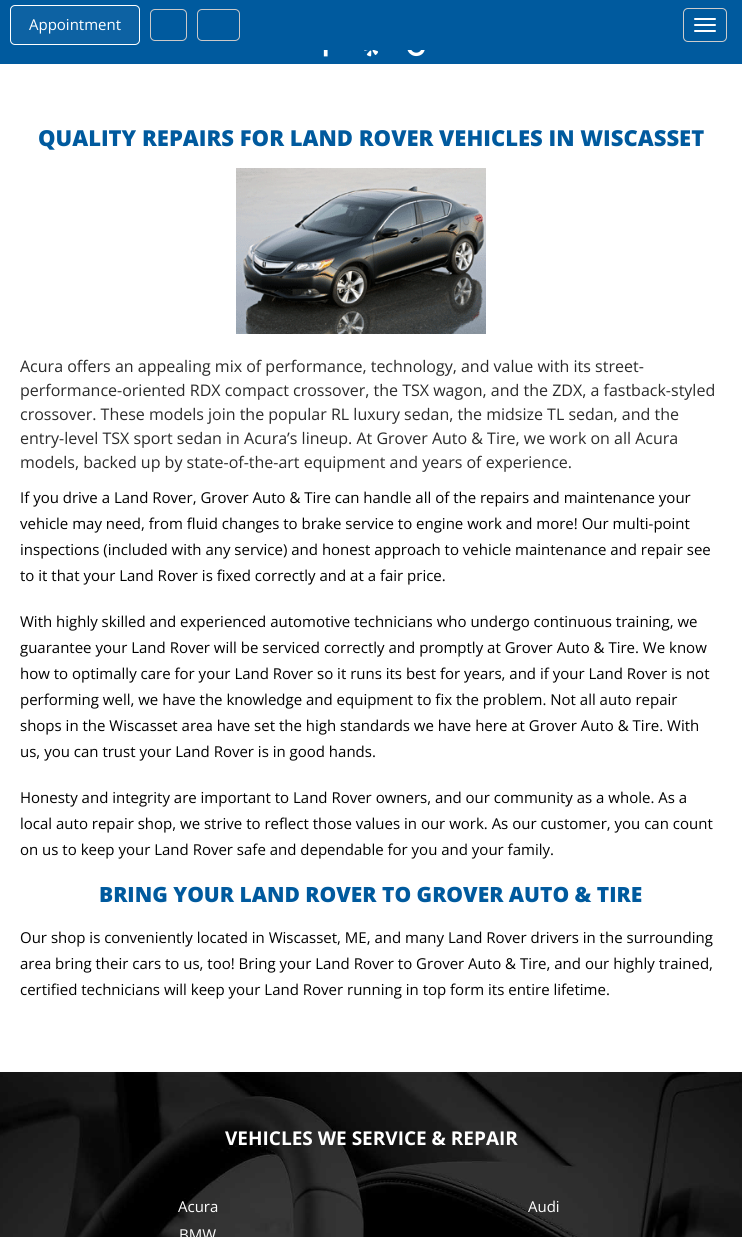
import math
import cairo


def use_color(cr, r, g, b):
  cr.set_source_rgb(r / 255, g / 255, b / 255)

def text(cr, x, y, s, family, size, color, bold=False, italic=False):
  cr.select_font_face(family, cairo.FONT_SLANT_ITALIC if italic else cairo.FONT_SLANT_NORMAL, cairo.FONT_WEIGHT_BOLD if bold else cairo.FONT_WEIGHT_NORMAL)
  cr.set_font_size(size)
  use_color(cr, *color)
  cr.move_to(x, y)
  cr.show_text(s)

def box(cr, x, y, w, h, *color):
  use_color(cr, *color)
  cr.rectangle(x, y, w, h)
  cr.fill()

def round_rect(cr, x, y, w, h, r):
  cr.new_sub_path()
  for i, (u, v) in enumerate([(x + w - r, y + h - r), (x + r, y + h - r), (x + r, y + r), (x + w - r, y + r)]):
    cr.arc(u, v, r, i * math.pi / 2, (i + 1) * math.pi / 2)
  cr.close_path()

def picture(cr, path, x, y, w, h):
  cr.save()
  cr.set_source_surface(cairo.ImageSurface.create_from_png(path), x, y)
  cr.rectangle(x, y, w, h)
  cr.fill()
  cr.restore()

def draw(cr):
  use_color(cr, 255, 255, 255)
  cr.paint()
  box(cr, 0, 0, 742, 64, 0, 90, 158)
  picture(cr, "img_01.png", 323, 50, 5, 7)
  picture(cr, "img_02.png", 364, 50, 14, 7)
  picture(cr, "img_03.png", 407, 50, 18, 7)
  use_color(cr, 13, 98, 163)
  round_rect(cr, 10.5, 5.5, 129, 39, 4.5)
  cr.fill_preserve()
  use_color(cr, 255, 255, 255)
  cr.set_line_width(1)
  cr.stroke()
  round_rect(cr, 150.5, 9.5, 36, 31, 4.5)
  use_color(cr, 203, 201, 201)
  cr.stroke()
  round_rect(cr, 197.5, 9.5, 42, 31, 4.5)
  cr.stroke()
  round_rect(cr, 683.5, 8.5, 43, 33, 4.5)
  use_color(cr, 204, 204, 204)
  cr.stroke()
  use_color(cr, 255, 255, 255)
  round_rect(cr, 694, 18, 22, 2, 1)
  cr.fill()
  round_rect(cr, 694, 24, 22, 2, 1)
  cr.fill()
  round_rect(cr, 694, 30, 22, 2, 1)
  cr.fill()
  picture(cr, "img_04.png", 236, 168, 250, 166)
  picture(cr, "img_05.png", 0, 1072, 742, 165)
  text(cr, 29, 30, "Appointment", "Open Sans", 15, (255, 255, 255))
  text(cr, 38, 146, "QUALITY REPAIRS FOR LAND ROVER VEHICLES IN WISCASSET", "Open Sans ExtraBold", 22, (0, 90, 158))
  text(cr, 20, 372, "Acura offers an appealing mix of performance, technology, and value with its street-", "Open Sans", 16, (43, 43, 43))
  text(cr, 20, 396, "performance-oriented RDX compact crossover, the TSX wagon, and the ZDX, a fastback-styled", "Open Sans", 16, (43, 43, 43))
  text(cr, 20, 420, "crossover. These models join the popular RL luxury sedan, the midsize TL sedan, and the", "Open Sans", 16, (43, 43, 43))
  text(cr, 20, 444, "entry-level TSX sport sedan in Acura’s lineup. At Grover Auto & Tire, we work on all Acura", "Open Sans", 16, (43, 43, 43))
  text(cr, 20, 468, "models, backed up by state-of-the-art equipment and years of experience.", "Open Sans", 16, (43, 43, 43))
  text(cr, 20, 503, "If you drive a Land Rover, Grover Auto & Tire can handle all of the repairs and maintenance your", "Open Sans", 15, (0, 0, 0))
  text(cr, 20, 529, "vehicle may need, from fluid changes to brake service to engine work and more! Our multi-point", "Open Sans", 15, (0, 0, 0))
  text(cr, 20, 555, "inspections (included with any service) and honest approach to vehicle maintenance and repair see", "Open Sans", 15, (0, 0, 0))
  text(cr, 20, 581, "to it that your Land Rover is fixed correctly and at a fair price.", "Open Sans", 15, (0, 0, 0))
  text(cr, 20, 627, "With highly skilled and experienced automotive technicians who undergo continuous training, we", "Open Sans", 15, (0, 0, 0))
  text(cr, 20, 653, "guarantee your Land Rover will be serviced correctly and promptly at Grover Auto & Tire. We know", "Open Sans", 15, (0, 0, 0))
  text(cr, 20, 679, "how to optimally care for your Land Rover so it runs its best for years, and if your Land Rover is not", "Open Sans", 15, (0, 0, 0))
  text(cr, 20, 705, "performing well, we have the knowledge and equipment to fix the problem. Not all auto repair", "Open Sans", 15, (0, 0, 0))
  text(cr, 20, 731, "shops in the Wiscasset area have set the high standards we have here at Grover Auto & Tire. With", "Open Sans", 15, (0, 0, 0))
  text(cr, 20, 757, "us, you can trust your Land Rover is in good hands.", "Open Sans", 15, (0, 0, 0))
  text(cr, 20, 803, "Honesty and integrity are important to Land Rover owners, and our community as a whole. As a", "Open Sans", 15, (0, 0, 0))
  text(cr, 20, 829, "local auto repair shop, we strive to reflect those values in our work. As our customer, you can count", "Open Sans", 15, (0, 0, 0))
  text(cr, 20, 855, "on us to keep your Land Rover safe and dependable for you and your family.", "Open Sans", 15, (0, 0, 0))
  text(cr, 99, 902, "BRING YOUR LAND ROVER TO GROVER AUTO & TIRE", "Open Sans ExtraBold", 21, (0, 90, 158))
  text(cr, 20, 943, "Our shop is conveniently located in Wiscasset, ME, and many Land Rover drivers in the surrounding", "Open Sans", 15, (0, 0, 0))
  text(cr, 20, 969, "area bring their cars to us, too! Bring your Land Rover to Grover Auto & Tire, and our highly trained,", "Open Sans", 15, (0, 0, 0))
  text(cr, 20, 995, "certified technicians will keep your Land Rover running in top form its entire lifetime.", "Open Sans", 15, (0, 0, 0))
  text(cr, 225, 1145, "VEHICLES WE SERVICE & REPAIR", "Open Sans", 19, (255, 255, 255), bold=True)
  text(cr, 178, 1212, "Acura", "Open Sans", 15, (255, 255, 255))
  text(cr, 528, 1212, "Audi", "Open Sans", 15, (255, 255, 255))
  text(cr, 179, 1240, "BMW", "Open Sans", 15, (255, 255, 255))


surface = cairo.ImageSurface(cairo.FORMAT_RGB24, 742, 1237)
cr = cairo.Context(surface)
options = cairo.FontOptions()
options.set_hint_metrics(cairo.HINT_METRICS_OFF)
options.set_hint_style(cairo.HINT_STYLE_NONE)
cr.set_font_options(options)
cr.set_miter_limit(4)
draw(cr)
surface.write_to_png("out.png")
